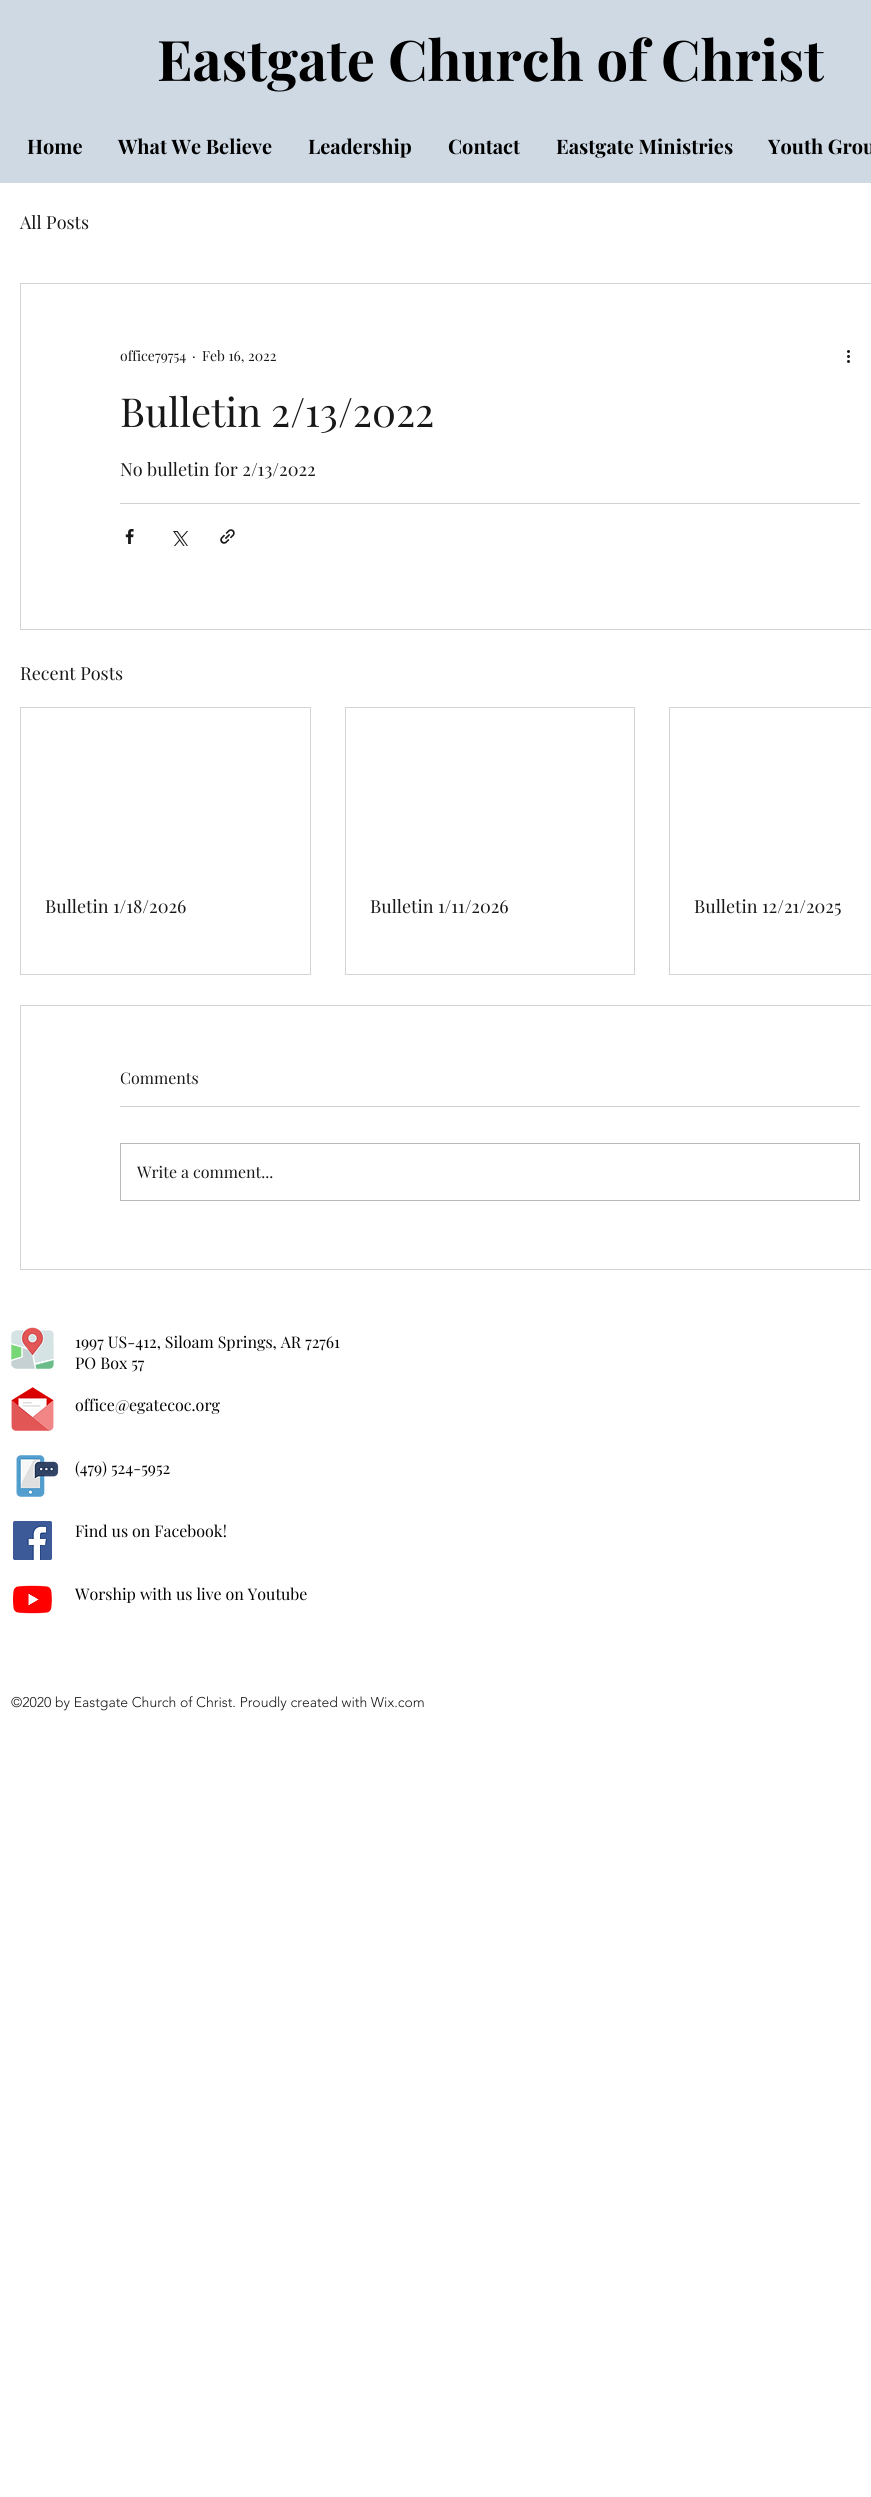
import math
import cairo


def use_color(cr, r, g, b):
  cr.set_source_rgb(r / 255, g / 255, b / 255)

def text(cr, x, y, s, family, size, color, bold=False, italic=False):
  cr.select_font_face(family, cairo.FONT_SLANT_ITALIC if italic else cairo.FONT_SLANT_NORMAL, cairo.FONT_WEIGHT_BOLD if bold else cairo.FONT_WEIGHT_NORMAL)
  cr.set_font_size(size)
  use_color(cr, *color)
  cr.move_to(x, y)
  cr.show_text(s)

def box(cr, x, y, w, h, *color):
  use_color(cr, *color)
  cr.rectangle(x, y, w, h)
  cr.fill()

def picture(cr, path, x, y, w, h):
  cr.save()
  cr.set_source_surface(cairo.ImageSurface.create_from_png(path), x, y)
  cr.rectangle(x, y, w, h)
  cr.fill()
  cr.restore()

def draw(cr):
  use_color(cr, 255, 255, 255)
  cr.paint()
  box(cr, 0, 0, 871, 183, 207, 217, 228)
  cr.rectangle(20.5, 283.5, 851, 346)
  use_color(cr, 212, 212, 212)
  cr.set_line_width(1)
  cr.stroke()
  picture(cr, "img_01.png", 847, 350, 3, 13)
  box(cr, 120, 503, 740, 1, 209, 209, 209)
  picture(cr, "img_02.png", 125, 529, 9, 15)
  picture(cr, "img_03.png", 173, 531, 15, 15)
  picture(cr, "img_04.png", 220, 529, 15, 15)
  cr.rectangle(20.5, 707.5, 290, 267)
  use_color(cr, 212, 212, 212)
  cr.stroke()
  cr.rectangle(345.5, 707.5, 289, 267)
  cr.stroke()
  cr.rectangle(669.5, 707.5, 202, 267)
  cr.stroke()
  cr.rectangle(20.5, 1005.5, 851, 264)
  cr.stroke()
  box(cr, 120, 1106, 740, 1, 209, 209, 209)
  cr.rectangle(120.5, 1143.5, 739, 57)
  use_color(cr, 186, 186, 186)
  cr.stroke()
  picture(cr, "img_05.png", 11, 1327, 43, 42)
  picture(cr, "img_06.png", 11, 1387, 43, 44)
  picture(cr, "img_07.png", 16, 1455, 43, 42)
  picture(cr, "img_08.png", 13, 1521, 39, 39)
  picture(cr, "img_09.png", 13, 1585, 39, 29)
  text(cr, 157, 81, "Eastgate Church of Christ", "Playfair Display", 56, (0, 0, 0), bold=True)
  text(cr, 27, 154, "Home", "Playfair Display", 20, (0, 0, 0), bold=True)
  text(cr, 118, 154, "What We Believe", "Playfair Display", 20, (0, 0, 0), bold=True)
  text(cr, 308, 154, "Leadership", "Playfair Display", 20, (0, 0, 0), bold=True)
  text(cr, 448, 154, "Contact", "Playfair Display", 20, (0, 0, 0), bold=True)
  text(cr, 556, 154, "Eastgate Ministries", "Playfair Display", 20, (0, 0, 0), bold=True)
  text(cr, 768, 154, "Youth Grou", "Playfair Display", 20, (0, 0, 0), bold=True)
  text(cr, 20, 229, "All Posts", "Playfair Display", 18, (24, 24, 24))
  text(cr, 120, 361, "office79754", "Playfair Display", 14, (24, 24, 24))
  text(cr, 192, 361, "·", "Playfair Display", 14, (24, 24, 24))
  text(cr, 202, 361, "Feb 16, 2022", "Playfair Display", 14, (24, 24, 24))
  text(cr, 120, 427, "Bulletin 2/13/2022", "Playfair Display", 40, (24, 24, 24))
  text(cr, 120, 476, "No bulletin for 2/13/2022", "Playfair Display", 18, (24, 24, 24))
  text(cr, 20, 680, "Recent Posts", "Playfair Display", 18, (24, 24, 24))
  text(cr, 45, 913, "Bulletin 1/18/2026", "Playfair Display", 18, (24, 24, 24))
  text(cr, 370, 913, "Bulletin 1/11/2026", "Playfair Display", 18, (24, 24, 24))
  text(cr, 694, 913, "Bulletin 12/21/2025", "Playfair Display", 18, (24, 24, 24))
  text(cr, 120, 1084, "Comments", "Playfair Display", 16, (24, 24, 24))
  text(cr, 137, 1178, "Write a comment...", "Playfair Display", 16, (24, 24, 24))
  text(cr, 75, 1348, "1997 US-412, Siloam Springs, AR 72761", "Playfair Display", 16, (0, 0, 0))
  text(cr, 75, 1369, "PO Box 57", "Playfair Display", 16, (0, 0, 0))
  text(cr, 75, 1411, "office@egatecoc.org", "Playfair Display", 16, (0, 0, 0))
  text(cr, 75, 1474, "(479) 524-5952", "Playfair Display", 16, (0, 0, 0))
  text(cr, 75, 1537, "Find us on Facebook!", "Playfair Display", 16, (0, 0, 0))
  text(cr, 75, 1600, "Worship with us live on Youtube", "Playfair Display", 16, (0, 0, 0))
  text(cr, 11, 1707, "©2020 by Eastgate Church of Christ. Proudly created with Wix.com", "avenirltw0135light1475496 Light", 14, (24, 24, 24))


surface = cairo.ImageSurface(cairo.FORMAT_RGB24, 871, 2497)
cr = cairo.Context(surface)
options = cairo.FontOptions()
options.set_hint_metrics(cairo.HINT_METRICS_OFF)
options.set_hint_style(cairo.HINT_STYLE_NONE)
cr.set_font_options(options)
cr.set_miter_limit(4)
draw(cr)
surface.write_to_png("out.png")
